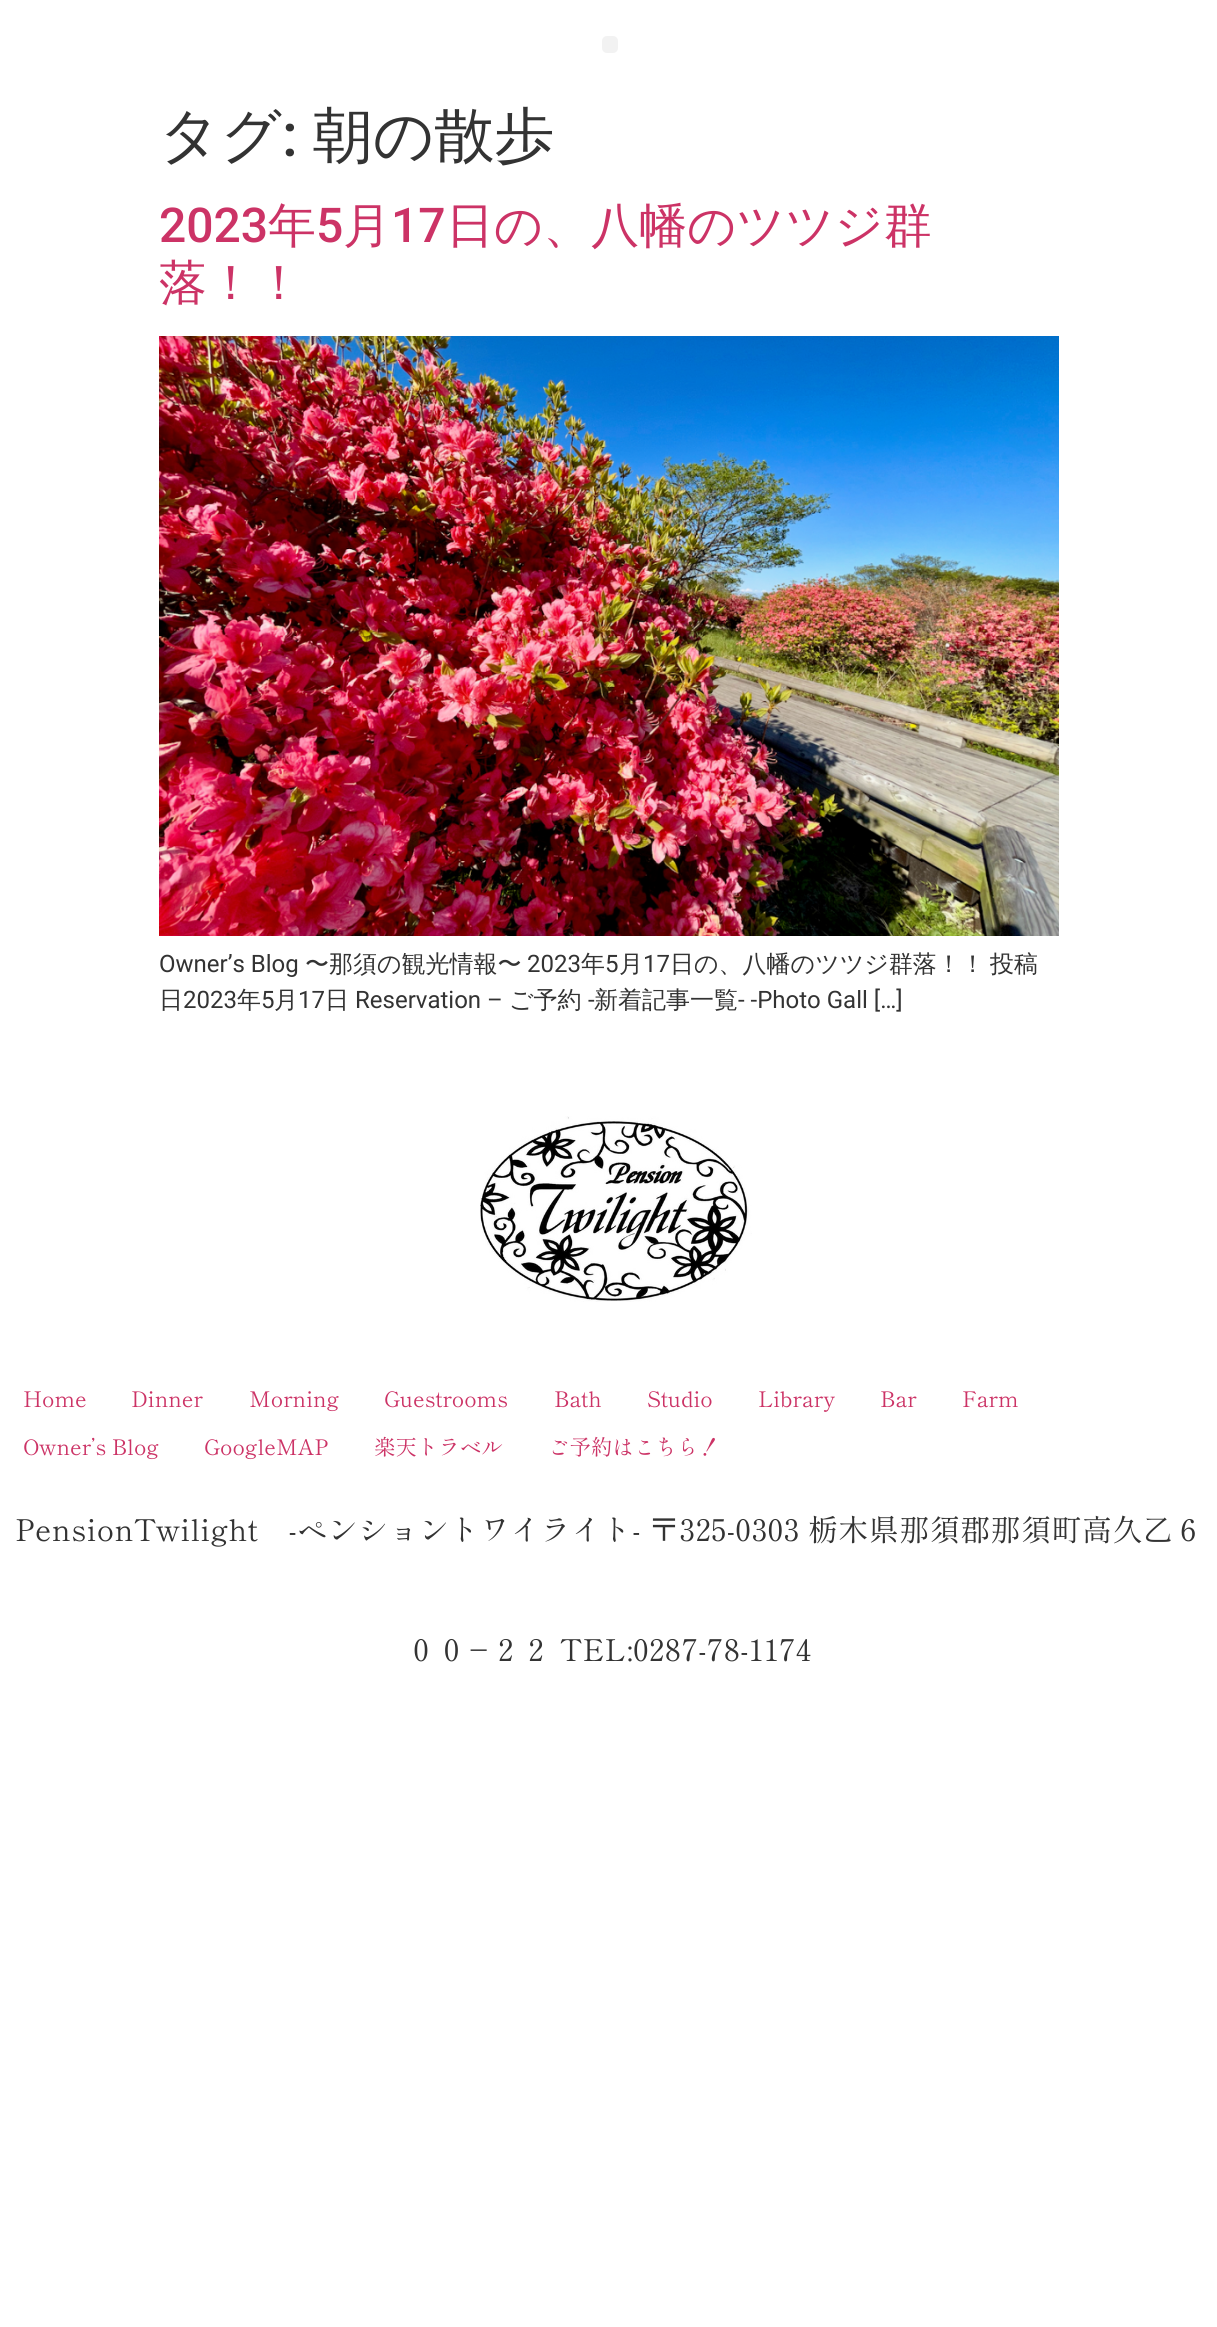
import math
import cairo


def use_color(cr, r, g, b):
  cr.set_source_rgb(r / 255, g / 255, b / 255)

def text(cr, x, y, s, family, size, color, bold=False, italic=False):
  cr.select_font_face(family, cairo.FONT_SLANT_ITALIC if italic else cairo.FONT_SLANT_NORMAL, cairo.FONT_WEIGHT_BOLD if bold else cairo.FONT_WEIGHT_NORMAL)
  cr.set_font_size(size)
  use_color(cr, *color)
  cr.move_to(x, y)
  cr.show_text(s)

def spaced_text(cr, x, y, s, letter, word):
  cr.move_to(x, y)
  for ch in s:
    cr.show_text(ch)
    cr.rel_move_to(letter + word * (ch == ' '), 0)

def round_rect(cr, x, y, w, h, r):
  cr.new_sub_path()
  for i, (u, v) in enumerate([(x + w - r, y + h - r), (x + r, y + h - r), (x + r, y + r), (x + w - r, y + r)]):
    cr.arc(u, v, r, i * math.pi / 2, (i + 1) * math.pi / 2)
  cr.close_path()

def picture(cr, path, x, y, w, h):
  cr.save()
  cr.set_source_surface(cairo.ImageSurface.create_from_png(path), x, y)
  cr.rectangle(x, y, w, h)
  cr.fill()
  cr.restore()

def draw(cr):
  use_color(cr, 255, 255, 255)
  cr.paint()
  use_color(cr, 242, 242, 242)
  round_rect(cr, 602, 36, 16, 17, 5)
  cr.fill()
  picture(cr, "img_01.png", 159, 336, 900, 600)
  picture(cr, "img_02.png", 480, 1116, 272, 186)
  text(cr, 159, 156, "タグ", "WenQuanYi Zen Hei Medium", 60, (51, 51, 51))
  text(cr, 282, 156, ":", "Roboto Medium", 60, (51, 51, 51))
  text(cr, 313, 156, "朝の散歩", "WenQuanYi Zen Hei Medium", 60, (51, 51, 51))
  text(cr, 159, 242, "2023", "Roboto Medium", 48, (204, 51, 102))
  text(cr, 268, 242, "年", "WenQuanYi Zen Hei Medium", 48, (204, 51, 102))
  text(cr, 316, 242, "5", "Roboto Medium", 48, (204, 51, 102))
  text(cr, 343, 242, "月", "WenQuanYi Zen Hei Medium", 48, (204, 51, 102))
  text(cr, 391, 242, "17", "Roboto Medium", 48, (204, 51, 102))
  text(cr, 446, 242, "日の、八幡のツツジ群", "WenQuanYi Zen Hei Medium", 48, (204, 51, 102))
  text(cr, 159, 299, "落！！", "WenQuanYi Zen Hei Medium", 48, (204, 51, 102))
  text(cr, 159, 972, "Owner’s Blog", "Roboto", 24, (51, 51, 51))
  text(cr, 305, 972, "〜那須の観光情報〜", "WenQuanYi Zen Hei Medium", 24, (51, 51, 51))
  text(cr, 527, 972, "2023", "Roboto", 24, (51, 51, 51))
  text(cr, 581, 972, "年", "WenQuanYi Zen Hei Medium", 24, (51, 51, 51))
  text(cr, 605, 972, "5", "Roboto", 24, (51, 51, 51))
  text(cr, 619, 972, "月", "WenQuanYi Zen Hei Medium", 24, (51, 51, 51))
  text(cr, 643, 972, "17", "Roboto", 24, (51, 51, 51))
  text(cr, 670, 972, "日の、八幡のツツジ群落！！", "WenQuanYi Zen Hei Medium", 24, (51, 51, 51))
  text(cr, 990, 972, "投稿", "WenQuanYi Zen Hei Medium", 24, (51, 51, 51))
  text(cr, 159, 1008, "日", "WenQuanYi Zen Hei Medium", 24, (51, 51, 51))
  text(cr, 183, 1008, "2023", "Roboto", 24, (51, 51, 51))
  text(cr, 237, 1008, "年", "WenQuanYi Zen Hei Medium", 24, (51, 51, 51))
  text(cr, 261, 1008, "5", "Roboto", 24, (51, 51, 51))
  text(cr, 274, 1008, "月", "WenQuanYi Zen Hei Medium", 24, (51, 51, 51))
  text(cr, 298, 1008, "17", "Roboto", 24, (51, 51, 51))
  text(cr, 325, 1008, "日", "WenQuanYi Zen Hei Medium", 24, (51, 51, 51))
  text(cr, 355, 1008, "Reservation –", "Roboto", 24, (51, 51, 51))
  text(cr, 509, 1008, "ご予約", "WenQuanYi Zen Hei Medium", 24, (51, 51, 51))
  text(cr, 588, 1008, "-", "Roboto", 24, (51, 51, 51))
  text(cr, 594, 1008, "新着記事一覧", "WenQuanYi Zen Hei Medium", 24, (51, 51, 51))
  text(cr, 738, 1008, "- -Photo Gall […]", "Roboto", 24, (51, 51, 51))
  text(cr, 23, 1407, "Home", "Shippori Mincho", 21.5, (204, 51, 102))
  text(cr, 131, 1407, "Dinner", "Shippori Mincho", 21.5, (204, 51, 102))
  text(cr, 249, 1407, "Morning", "Shippori Mincho", 21.5, (204, 51, 102))
  text(cr, 384, 1407, "Guestrooms", "Shippori Mincho", 21.5, (204, 51, 102))
  text(cr, 554, 1407, "Bath", "Shippori Mincho", 21.5, (204, 51, 102))
  text(cr, 647, 1407, "Studio", "Shippori Mincho", 21.5, (204, 51, 102))
  text(cr, 758, 1407, "Library", "Shippori Mincho", 21.5, (204, 51, 102))
  text(cr, 880, 1407, "Bar", "Shippori Mincho", 21.5, (204, 51, 102))
  text(cr, 962, 1407, "Farm", "Shippori Mincho", 21.5, (204, 51, 102))
  text(cr, 23, 1455, "Owner’s Blog", "Shippori Mincho", 21.5, (204, 51, 102))
  text(cr, 204, 1455, "GoogleMAP", "Shippori Mincho", 21.5, (204, 51, 102))
  text(cr, 374, 1455, "楽天トラベル", "Shippori Mincho", 21.5, (204, 51, 102))
  text(cr, 548, 1455, "ご予約はこちら！", "Shippori Mincho", 21.5, (204, 51, 102))
  cr.set_font_size(30)
  use_color(cr, 51, 51, 51)
  spaced_text(cr, 15, 1541, "PensionTwilight　-ペンショントワイライト- 〒325-0303 栃木県那須郡那須町高久乙６", 0.45, 0)
  spaced_text(cr, 406, 1661, "００−２２ TEL:0287-78-1174", 0.45, 0)


surface = cairo.ImageSurface(cairo.FORMAT_RGB24, 1217, 2327)
cr = cairo.Context(surface)
options = cairo.FontOptions()
options.set_hint_metrics(cairo.HINT_METRICS_OFF)
options.set_hint_style(cairo.HINT_STYLE_NONE)
cr.set_font_options(options)
cr.set_miter_limit(4)
draw(cr)
surface.write_to_png("out.png")
